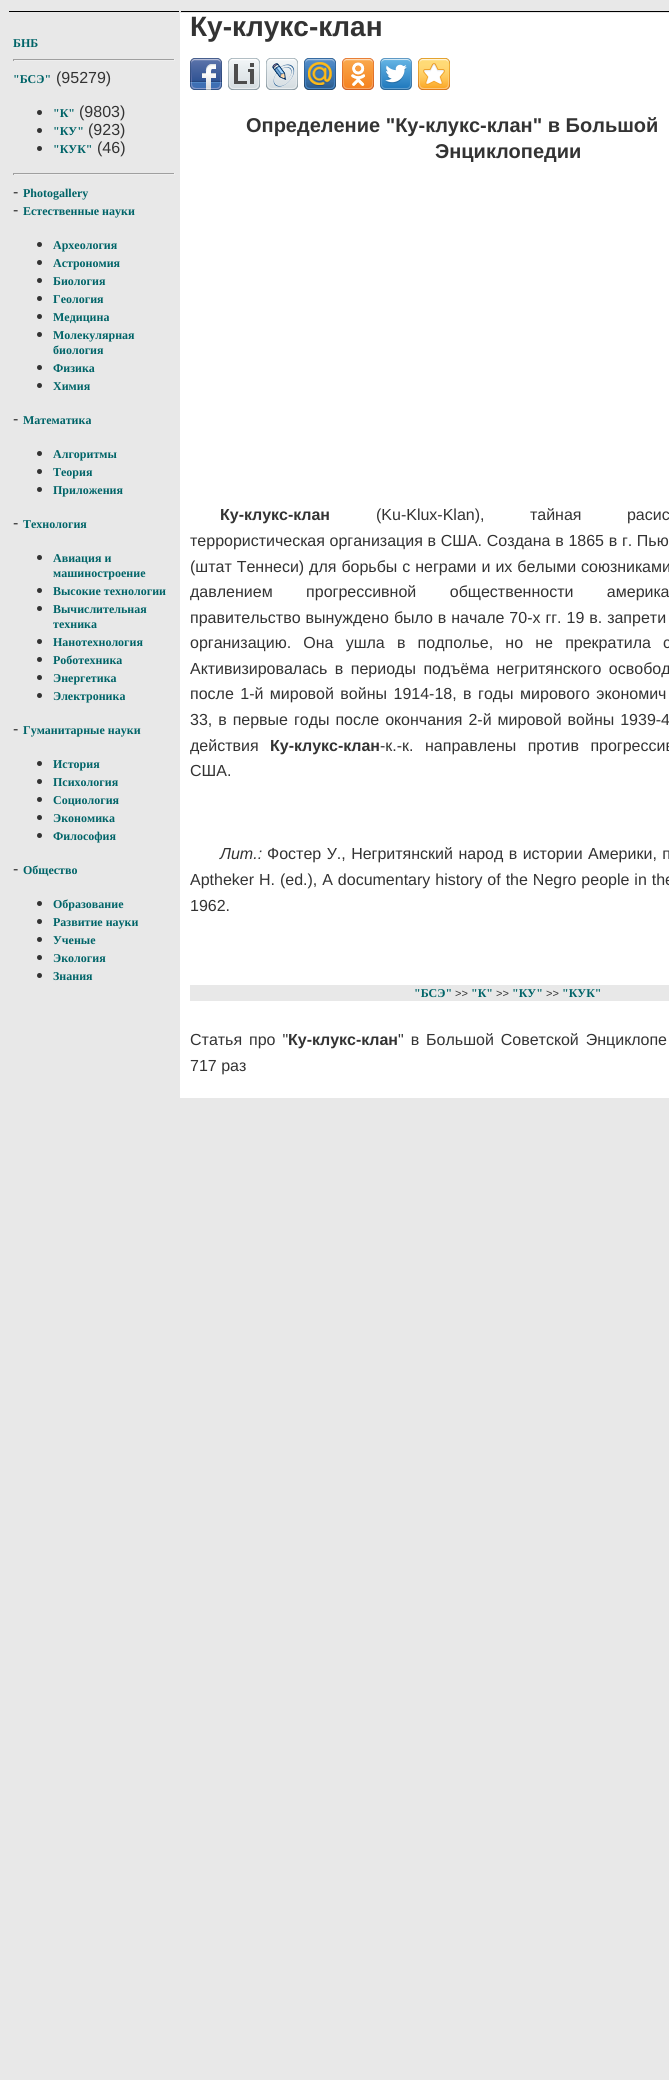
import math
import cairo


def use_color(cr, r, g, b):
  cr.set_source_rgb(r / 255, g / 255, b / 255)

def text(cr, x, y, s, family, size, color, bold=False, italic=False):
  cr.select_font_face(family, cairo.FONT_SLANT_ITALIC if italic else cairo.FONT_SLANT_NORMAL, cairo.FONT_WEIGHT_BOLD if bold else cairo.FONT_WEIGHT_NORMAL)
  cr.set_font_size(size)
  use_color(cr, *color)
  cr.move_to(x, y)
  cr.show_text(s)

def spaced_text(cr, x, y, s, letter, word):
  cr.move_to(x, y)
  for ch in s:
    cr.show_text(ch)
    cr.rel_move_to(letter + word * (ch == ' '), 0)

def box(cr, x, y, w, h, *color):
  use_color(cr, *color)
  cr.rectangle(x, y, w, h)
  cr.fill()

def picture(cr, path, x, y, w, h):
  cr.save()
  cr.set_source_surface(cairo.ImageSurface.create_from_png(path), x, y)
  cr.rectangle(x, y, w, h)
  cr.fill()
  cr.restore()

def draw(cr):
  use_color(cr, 232, 232, 232)
  cr.paint()
  box(cr, 9, 11, 170, 1, 0, 0, 0)
  box(cr, 181, 11, 488, 1, 0, 0, 0)
  box(cr, 13, 59, 162, 1, 159, 159, 159)
  box(cr, 174, 59, 1, 2, 238, 238, 238)
  box(cr, 13, 60, 162, 1, 238, 238, 238)
  box(cr, 13, 59, 1, 2, 159, 159, 159)
  use_color(cr, 51, 51, 51)
  cr.arc(39.5, 112.5, 2.5, 0, 2 * math.pi)
  cr.fill()
  cr.arc(39.5, 130.5, 2.5, 0, 2 * math.pi)
  cr.fill()
  cr.arc(39.5, 148.5, 2.5, 0, 2 * math.pi)
  cr.fill()
  box(cr, 13, 173, 162, 1, 159, 159, 159)
  box(cr, 174, 173, 1, 2, 238, 238, 238)
  box(cr, 13, 174, 162, 1, 238, 238, 238)
  box(cr, 13, 173, 1, 2, 159, 159, 159)
  use_color(cr, 51, 51, 51)
  cr.arc(39.5, 244.5, 2.5, 0, 2 * math.pi)
  cr.fill()
  cr.arc(39.5, 262.5, 2.5, 0, 2 * math.pi)
  cr.fill()
  cr.arc(39.5, 280.5, 2.5, 0, 2 * math.pi)
  cr.fill()
  cr.arc(39.5, 298.5, 2.5, 0, 2 * math.pi)
  cr.fill()
  cr.arc(39.5, 316.5, 2.5, 0, 2 * math.pi)
  cr.fill()
  cr.arc(39.5, 334.5, 2.5, 0, 2 * math.pi)
  cr.fill()
  cr.arc(39.5, 367.5, 2.5, 0, 2 * math.pi)
  cr.fill()
  cr.arc(39.5, 385.5, 2.5, 0, 2 * math.pi)
  cr.fill()
  cr.arc(39.5, 453.5, 2.5, 0, 2 * math.pi)
  cr.fill()
  cr.arc(39.5, 471.5, 2.5, 0, 2 * math.pi)
  cr.fill()
  cr.arc(39.5, 489.5, 2.5, 0, 2 * math.pi)
  cr.fill()
  cr.arc(39.5, 557.5, 2.5, 0, 2 * math.pi)
  cr.fill()
  cr.arc(39.5, 590.5, 2.5, 0, 2 * math.pi)
  cr.fill()
  cr.arc(39.5, 608.5, 2.5, 0, 2 * math.pi)
  cr.fill()
  cr.arc(39.5, 641.5, 2.5, 0, 2 * math.pi)
  cr.fill()
  cr.arc(39.5, 659.5, 2.5, 0, 2 * math.pi)
  cr.fill()
  cr.arc(39.5, 677.5, 2.5, 0, 2 * math.pi)
  cr.fill()
  cr.arc(39.5, 695.5, 2.5, 0, 2 * math.pi)
  cr.fill()
  cr.arc(39.5, 763.5, 2.5, 0, 2 * math.pi)
  cr.fill()
  cr.arc(39.5, 781.5, 2.5, 0, 2 * math.pi)
  cr.fill()
  cr.arc(39.5, 799.5, 2.5, 0, 2 * math.pi)
  cr.fill()
  cr.arc(39.5, 817.5, 2.5, 0, 2 * math.pi)
  cr.fill()
  cr.arc(39.5, 835.5, 2.5, 0, 2 * math.pi)
  cr.fill()
  cr.arc(39.5, 903.5, 2.5, 0, 2 * math.pi)
  cr.fill()
  cr.arc(39.5, 921.5, 2.5, 0, 2 * math.pi)
  cr.fill()
  cr.arc(39.5, 939.5, 2.5, 0, 2 * math.pi)
  cr.fill()
  cr.arc(39.5, 957.5, 2.5, 0, 2 * math.pi)
  cr.fill()
  cr.arc(39.5, 975.5, 2.5, 0, 2 * math.pi)
  cr.fill()
  box(cr, 180, 13, 489, 1085, 255, 255, 255)
  picture(cr, "img_01.png", 190, 58, 32, 32)
  picture(cr, "img_02.png", 228, 58, 32, 32)
  picture(cr, "img_03.png", 266, 58, 32, 32)
  picture(cr, "img_04.png", 304, 58, 32, 32)
  picture(cr, "img_05.png", 342, 58, 32, 32)
  picture(cr, "img_06.png", 380, 58, 32, 32)
  picture(cr, "img_07.png", 418, 58, 32, 32)
  box(cr, 190, 985, 479, 16, 232, 232, 232)
  text(cr, 13, 47, "БНБ", "Liberation Serif", 12, (0, 100, 104), bold=True)
  text(cr, 13, 83, "\"БСЭ\"", "Liberation Serif", 12, (0, 100, 104), bold=True)
  text(cr, 56, 83, "(95279)", "Liberation Sans", 16, (51, 51, 51))
  text(cr, 53, 117, "\"К\"", "Liberation Serif", 12, (0, 100, 104), bold=True)
  text(cr, 79, 117, "(9803)", "Liberation Sans", 16, (51, 51, 51))
  text(cr, 53, 135, "\"КУ\"", "Liberation Serif", 12, (0, 100, 104), bold=True)
  text(cr, 88, 135, "(923)", "Liberation Sans", 16, (51, 51, 51))
  text(cr, 53, 153, "\"КУК\"", "Liberation Serif", 12, (0, 100, 104), bold=True)
  text(cr, 97, 153, "(46)", "Liberation Sans", 16, (51, 51, 51))
  text(cr, 13, 197, "-", "Liberation Sans", 16, (51, 51, 51))
  text(cr, 23, 197, "Photogallery", "Liberation Serif", 12, (0, 100, 104), bold=True)
  text(cr, 13, 215, "-", "Liberation Sans", 16, (51, 51, 51))
  text(cr, 23, 215, "Естественные науки", "Liberation Serif", 12, (0, 100, 104), bold=True)
  text(cr, 53, 249, "Археология", "Liberation Serif", 12, (0, 100, 104), bold=True)
  text(cr, 53, 267, "Астрономия", "Liberation Serif", 12, (0, 100, 104), bold=True)
  text(cr, 53, 285, "Биология", "Liberation Serif", 12, (0, 100, 104), bold=True)
  text(cr, 53, 303, "Геология", "Liberation Serif", 12, (0, 100, 104), bold=True)
  text(cr, 53, 321, "Медицина", "Liberation Serif", 12, (0, 100, 104), bold=True)
  text(cr, 53, 339, "Молекулярная", "Liberation Serif", 12, (0, 100, 104), bold=True)
  text(cr, 53, 354, "биология", "Liberation Serif", 12, (0, 100, 104), bold=True)
  text(cr, 53, 372, "Физика", "Liberation Serif", 12, (0, 100, 104), bold=True)
  text(cr, 53, 390, "Химия", "Liberation Serif", 12, (0, 100, 104), bold=True)
  text(cr, 13, 424, "-", "Liberation Sans", 16, (51, 51, 51))
  text(cr, 23, 424, "Математика", "Liberation Serif", 12, (0, 100, 104), bold=True)
  text(cr, 53, 458, "Алгоритмы", "Liberation Serif", 12, (0, 100, 104), bold=True)
  text(cr, 53, 476, "Теория", "Liberation Serif", 12, (0, 100, 104), bold=True)
  text(cr, 53, 494, "Приложения", "Liberation Serif", 12, (0, 100, 104), bold=True)
  text(cr, 13, 528, "-", "Liberation Sans", 16, (51, 51, 51))
  text(cr, 23, 528, "Технология", "Liberation Serif", 12, (0, 100, 104), bold=True)
  text(cr, 53, 562, "Авиация и", "Liberation Serif", 12, (0, 100, 104), bold=True)
  text(cr, 53, 577, "машиностроение", "Liberation Serif", 12, (0, 100, 104), bold=True)
  text(cr, 53, 595, "Высокие технологии", "Liberation Serif", 12, (0, 100, 104), bold=True)
  text(cr, 53, 613, "Вычислительная", "Liberation Serif", 12, (0, 100, 104), bold=True)
  text(cr, 53, 628, "техника", "Liberation Serif", 12, (0, 100, 104), bold=True)
  text(cr, 53, 646, "Нанотехнология", "Liberation Serif", 12, (0, 100, 104), bold=True)
  text(cr, 53, 664, "Роботехника", "Liberation Serif", 12, (0, 100, 104), bold=True)
  text(cr, 53, 682, "Энергетика", "Liberation Serif", 12, (0, 100, 104), bold=True)
  text(cr, 53, 700, "Электроника", "Liberation Serif", 12, (0, 100, 104), bold=True)
  text(cr, 13, 734, "-", "Liberation Sans", 16, (51, 51, 51))
  text(cr, 23, 734, "Гуманитарные науки", "Liberation Serif", 12, (0, 100, 104), bold=True)
  text(cr, 53, 768, "История", "Liberation Serif", 12, (0, 100, 104), bold=True)
  text(cr, 53, 786, "Психология", "Liberation Serif", 12, (0, 100, 104), bold=True)
  text(cr, 53, 804, "Социология", "Liberation Serif", 12, (0, 100, 104), bold=True)
  text(cr, 53, 822, "Экономика", "Liberation Serif", 12, (0, 100, 104), bold=True)
  text(cr, 53, 840, "Философия", "Liberation Serif", 12, (0, 100, 104), bold=True)
  text(cr, 13, 874, "-", "Liberation Sans", 16, (51, 51, 51))
  text(cr, 23, 874, "Общество", "Liberation Serif", 12, (0, 100, 104), bold=True)
  text(cr, 53, 908, "Образование", "Liberation Serif", 12, (0, 100, 104), bold=True)
  text(cr, 53, 926, "Развитие науки", "Liberation Serif", 12, (0, 100, 104), bold=True)
  text(cr, 53, 944, "Ученые", "Liberation Serif", 12, (0, 100, 104), bold=True)
  text(cr, 53, 962, "Экология", "Liberation Serif", 12, (0, 100, 104), bold=True)
  text(cr, 53, 980, "Знания", "Liberation Serif", 12, (0, 100, 104), bold=True)
  text(cr, 190, 36, "Ку-клукс-клан", "Liberation Sans", 28, (51, 51, 51), bold=True)
  text(cr, 246, 132, "Определение \"Ку-клукс-клан\" в Большой", "Liberation Sans", 20, (51, 51, 51), bold=True)
  text(cr, 435, 158, "Энциклопедии", "Liberation Sans", 20, (51, 51, 51), bold=True)
  text(cr, 220, 520, "Ку-клукс-клан", "Liberation Sans", 16, (51, 51, 51), bold=True)
  cr.select_font_face("Liberation Sans")
  spaced_text(cr, 376, 520, "(Ku-Klux-Klan), тайная расис", 0, 41)
  spaced_text(cr, 190, 546, "террористическая организация в США. Создана в 1865 в г. Пью", 0, 0.25)
  spaced_text(cr, 190, 572, "(штат Теннеси) для борьбы с неграми и их белыми союзниками", 0, 0.5)
  spaced_text(cr, 190, 597, "давлением прогрессивной общественности америка", 0, 29)
  spaced_text(cr, 190, 623, "правительство вынуждено было в начале 70-х гг. 19 в. запрети", 0, 0.5)
  spaced_text(cr, 190, 648, "организацию. Она ушла в подполье, но не прекратила с", 0, 7.75)
  spaced_text(cr, 190, 674, "Активизировалась в периоды подъёма негритянского освобод", 0, 3)
  spaced_text(cr, 190, 699, "после 1-й мировой войны 1914-18, в годы мирового экономич", 0, 2)
  spaced_text(cr, 190, 725, "33, в первые годы после окончания 2-й мировой войны 1939-4", 0, 1.5)
  text(cr, 190, 751, "действия", "Liberation Sans", 16, (51, 51, 51))
  text(cr, 270, 751, "Ку-клукс-клан", "Liberation Sans", 16, (51, 51, 51), bold=True)
  cr.select_font_face("Liberation Sans")
  spaced_text(cr, 380, 751, "-к.-к. направлены против прогрессив", 0, 7)
  text(cr, 190, 776, "США.", "Liberation Sans", 16, (51, 51, 51))
  text(cr, 220, 859, "Лит.:", "Liberation Sans", 16, (51, 51, 51), italic=True)
  cr.select_font_face("Liberation Sans")
  spaced_text(cr, 267, 859, "Фостер У., Негритянский народ в истории Америки, п", 0, 1)
  spaced_text(cr, 190, 885, "Aptheker Н. (ed.), A documentary history of the Negro people in the", 0, 0.5)
  text(cr, 190, 911, "1962.", "Liberation Sans", 16, (51, 51, 51))
  text(cr, 414, 997, "\"БСЭ\"", "Liberation Serif", 12, (0, 100, 104), bold=True)
  text(cr, 455, 997, ">>", "Liberation Sans", 11, (51, 51, 51))
  text(cr, 471, 997, "\"К\"", "Liberation Serif", 12, (0, 100, 104), bold=True)
  text(cr, 496, 997, ">>", "Liberation Sans", 11, (51, 51, 51))
  text(cr, 512, 997, "\"КУ\"", "Liberation Serif", 12, (0, 100, 104), bold=True)
  text(cr, 546, 997, ">>", "Liberation Sans", 11, (51, 51, 51))
  text(cr, 562, 997, "\"КУК\"", "Liberation Serif", 12, (0, 100, 104), bold=True)
  cr.select_font_face("Liberation Sans")
  cr.set_font_size(16)
  use_color(cr, 51, 51, 51)
  spaced_text(cr, 190, 1045, "Статья про \"", 0, 2.5)
  text(cr, 288, 1045, "Ку-клукс-клан", "Liberation Sans", 16, (51, 51, 51), bold=True)
  cr.select_font_face("Liberation Sans")
  spaced_text(cr, 398, 1045, "\" в Большой Советской Энциклопе", 0, 2.5)
  text(cr, 190, 1071, "717 раз", "Liberation Sans", 16, (51, 51, 51))


surface = cairo.ImageSurface(cairo.FORMAT_RGB24, 669, 2080)
cr = cairo.Context(surface)
options = cairo.FontOptions()
options.set_hint_metrics(cairo.HINT_METRICS_OFF)
options.set_hint_style(cairo.HINT_STYLE_NONE)
cr.set_font_options(options)
cr.set_miter_limit(4)
draw(cr)
surface.write_to_png("out.png")
